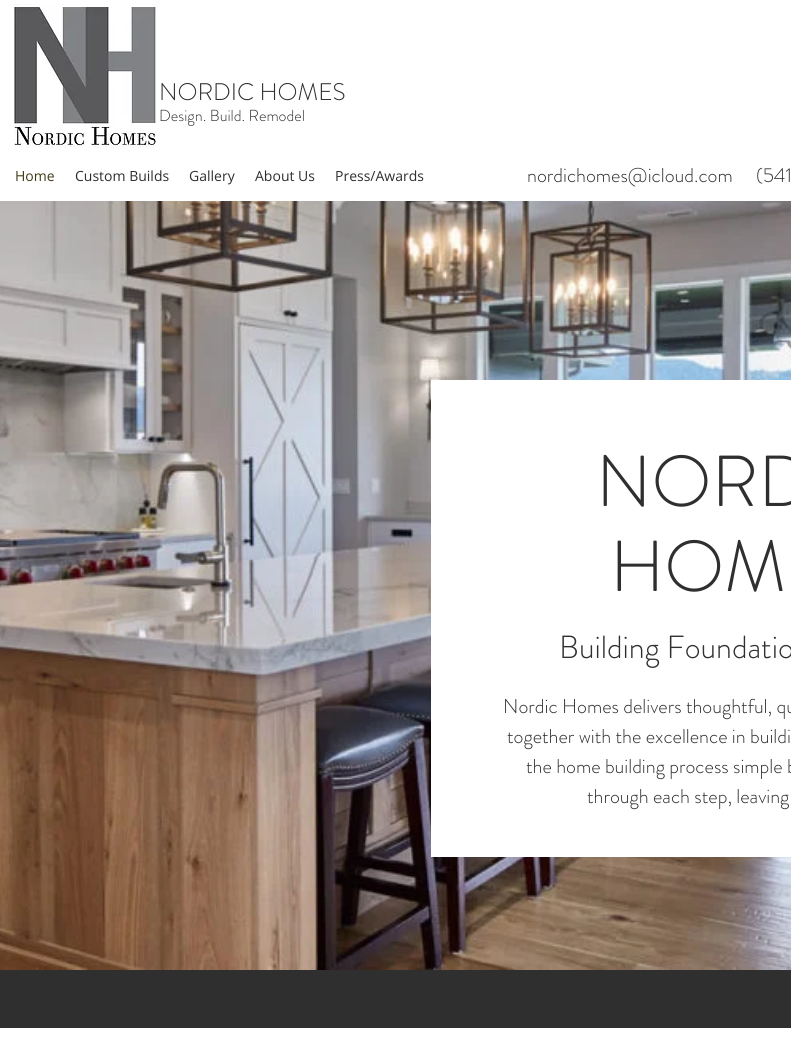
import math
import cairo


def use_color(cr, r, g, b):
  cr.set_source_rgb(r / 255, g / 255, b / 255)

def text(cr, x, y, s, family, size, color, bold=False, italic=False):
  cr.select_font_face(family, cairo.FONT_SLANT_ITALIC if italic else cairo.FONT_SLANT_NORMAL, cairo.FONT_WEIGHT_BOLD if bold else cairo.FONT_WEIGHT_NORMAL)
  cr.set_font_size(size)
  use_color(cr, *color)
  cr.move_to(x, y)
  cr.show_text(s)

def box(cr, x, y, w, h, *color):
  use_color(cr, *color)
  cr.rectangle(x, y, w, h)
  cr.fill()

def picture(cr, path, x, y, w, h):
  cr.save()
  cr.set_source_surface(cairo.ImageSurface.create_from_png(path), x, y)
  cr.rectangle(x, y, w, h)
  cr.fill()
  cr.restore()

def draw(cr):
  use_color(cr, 255, 255, 255)
  cr.paint()
  picture(cr, "img_01.png", 14, 4, 144, 144)
  picture(cr, "img_02.png", 0, 201, 791, 769)
  box(cr, 431, 380, 360, 477, 255, 255, 255)
  box(cr, 0, 970, 791, 58, 47, 47, 48)
  text(cr, 159, 100, "NORDIC HOMES", "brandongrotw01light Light", 24, (47, 47, 48))
  text(cr, 159, 121, "Design. Build. Remodel", "brandongrotw01light Light", 16, (47, 47, 48))
  text(cr, 15, 181, "Home", "Open Sans", 14, (62, 60, 23))
  text(cr, 75, 181, "Custom Builds", "Open Sans", 14, (47, 47, 48))
  text(cr, 189, 181, "Gallery", "Open Sans", 14, (47, 47, 48))
  text(cr, 255, 181, "About Us", "Open Sans", 14, (47, 47, 48))
  text(cr, 335, 181, "Press/Awards", "Open Sans", 14, (47, 47, 48))
  text(cr, 527, 182, "nordichomes@icloud.com", "brandongrotw01light Light", 20, (47, 47, 48))
  text(cr, 756, 182, "(541", "brandongrotw01light Light", 20, (47, 47, 48))
  text(cr, 596, 506, "NORD", "brandongrotw01light Light", 72, (47, 47, 48))
  text(cr, 610, 591, "HOM", "brandongrotw01light Light", 72, (47, 47, 48))
  text(cr, 559, 658, "Building Foundatio", "brandongrotw01light Light", 32, (47, 47, 48))
  text(cr, 503, 713, "Nordic Homes delivers thoughtful, qu", "brandongrotw01light Light", 20, (47, 47, 48))
  text(cr, 507, 743, "together with the excellence in buildi", "brandongrotw01light Light", 20, (47, 47, 48))
  text(cr, 526, 773, "the home building process simple b", "brandongrotw01light Light", 20, (47, 47, 48))
  text(cr, 587, 803, "through each step, leaving", "brandongrotw01light Light", 20, (47, 47, 48))


surface = cairo.ImageSurface(cairo.FORMAT_RGB24, 791, 1058)
cr = cairo.Context(surface)
options = cairo.FontOptions()
options.set_hint_metrics(cairo.HINT_METRICS_OFF)
options.set_hint_style(cairo.HINT_STYLE_NONE)
cr.set_font_options(options)
cr.set_miter_limit(4)
draw(cr)
surface.write_to_png("out.png")
